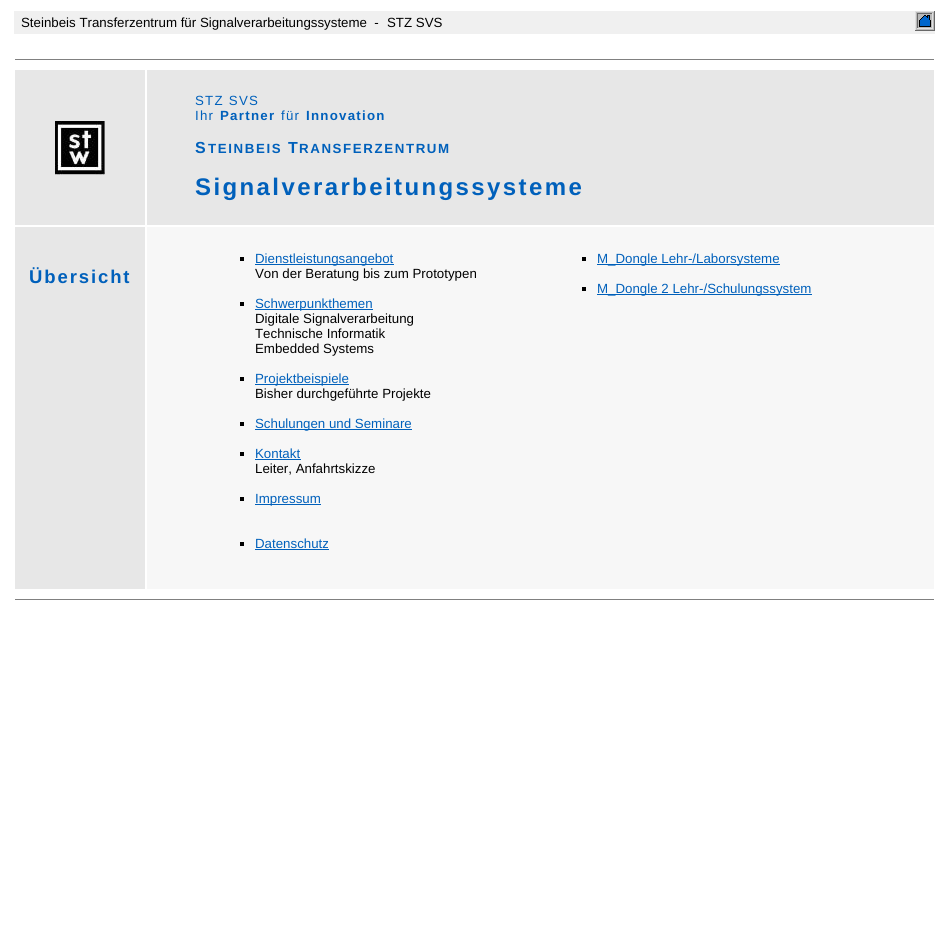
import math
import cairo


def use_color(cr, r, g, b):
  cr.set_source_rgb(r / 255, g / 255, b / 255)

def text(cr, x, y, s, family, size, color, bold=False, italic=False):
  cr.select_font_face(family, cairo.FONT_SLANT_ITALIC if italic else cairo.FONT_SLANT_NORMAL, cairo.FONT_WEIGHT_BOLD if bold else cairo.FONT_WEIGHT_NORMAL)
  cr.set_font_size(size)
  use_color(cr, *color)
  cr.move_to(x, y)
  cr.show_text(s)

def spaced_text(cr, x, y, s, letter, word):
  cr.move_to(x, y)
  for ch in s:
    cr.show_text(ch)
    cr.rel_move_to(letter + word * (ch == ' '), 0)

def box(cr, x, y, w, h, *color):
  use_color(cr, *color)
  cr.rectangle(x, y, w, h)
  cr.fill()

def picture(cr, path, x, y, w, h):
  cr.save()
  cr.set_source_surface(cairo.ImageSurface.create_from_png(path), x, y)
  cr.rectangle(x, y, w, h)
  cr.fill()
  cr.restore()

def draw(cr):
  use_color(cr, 255, 255, 255)
  cr.paint()
  box(cr, 14, 11, 921, 23, 240, 240, 240)
  picture(cr, "img_01.png", 915, 11, 20, 20)
  box(cr, 15, 59, 919, 1, 128, 128, 128)
  box(cr, 15, 70, 130, 155, 231, 231, 231)
  picture(cr, "img_02.png", 55, 121, 50, 54)
  box(cr, 147, 70, 787, 155, 231, 231, 231)
  box(cr, 15, 227, 130, 362, 231, 231, 231)
  box(cr, 147, 227, 787, 362, 247, 247, 247)
  box(cr, 240, 257, 4, 4, 0, 0, 0)
  box(cr, 255, 264, 139, 1, 0, 96, 187)
  box(cr, 240, 302, 4, 4, 0, 0, 0)
  box(cr, 255, 309, 118, 1, 0, 96, 187)
  box(cr, 240, 377, 4, 4, 0, 0, 0)
  box(cr, 255, 384, 94, 1, 0, 96, 187)
  box(cr, 240, 422, 4, 4, 0, 0, 0)
  box(cr, 255, 429, 157, 1, 0, 96, 187)
  box(cr, 240, 452, 4, 4, 0, 0, 0)
  box(cr, 255, 459, 46, 1, 0, 96, 187)
  box(cr, 240, 497, 4, 4, 0, 0, 0)
  box(cr, 255, 504, 66, 1, 0, 96, 187)
  box(cr, 240, 542, 4, 4, 0, 0, 0)
  box(cr, 255, 549, 74, 1, 0, 96, 187)
  box(cr, 582, 257, 4, 4, 0, 0, 0)
  box(cr, 597, 264, 183, 1, 0, 96, 187)
  box(cr, 582, 287, 4, 4, 0, 0, 0)
  box(cr, 597, 294, 215, 1, 0, 96, 187)
  box(cr, 15, 599, 919, 1, 128, 128, 128)
  text(cr, 21, 27, "Steinbeis Transferzentrum für Signalverarbeitungssysteme  -", "Liberation Sans", 13.3, (0, 0, 0))
  text(cr, 387, 27, "STZ SVS", "Liberation Sans", 13.3, (0, 0, 0))
  use_color(cr, 0, 96, 187)
  spaced_text(cr, 195, 105, "STZ SVS", 1.25, 0)
  spaced_text(cr, 195, 120, "Ihr", 1.25, 0)
  cr.select_font_face("Liberation Sans", cairo.FONT_SLANT_NORMAL, cairo.FONT_WEIGHT_BOLD)
  spaced_text(cr, 220, 120, "Partner", 1.25, 0)
  cr.select_font_face("Liberation Sans")
  spaced_text(cr, 281, 120, "für", 1.25, 0)
  cr.select_font_face("Liberation Sans", cairo.FONT_SLANT_NORMAL, cairo.FONT_WEIGHT_BOLD)
  spaced_text(cr, 306, 120, "Innovation", 1.25, 0)
  cr.set_font_size(16)
  spaced_text(cr, 195, 153, "S", 1.6, 0)
  cr.set_font_size(13.3)
  spaced_text(cr, 208, 153, "TEINBEIS", 1.6, 0)
  cr.set_font_size(16)
  spaced_text(cr, 288, 153, "T", 1.6, 0)
  cr.set_font_size(13.3)
  spaced_text(cr, 299, 153, "RANSFERZENTRUM", 1.6, 0)
  cr.set_font_size(24)
  spaced_text(cr, 195, 195, "Signalverarbeitungssysteme", 2.4, 0)
  cr.set_font_size(18.5)
  spaced_text(cr, 29, 283, "Übersicht", 1.9, 0)
  text(cr, 255, 263, "Dienstleistungsangebot", "Liberation Sans", 13.3, (0, 96, 187))
  text(cr, 255, 278, "Von der Beratung bis zum Prototypen", "Liberation Sans", 13.3, (0, 0, 0))
  text(cr, 255, 308, "Schwerpunkthemen", "Liberation Sans", 13.3, (0, 96, 187))
  text(cr, 255, 323, "Digitale Signalverarbeitung", "Liberation Sans", 13.3, (0, 0, 0))
  text(cr, 255, 338, "Technische Informatik", "Liberation Sans", 13.3, (0, 0, 0))
  text(cr, 255, 353, "Embedded Systems", "Liberation Sans", 13.3, (0, 0, 0))
  text(cr, 255, 383, "Projektbeispiele", "Liberation Sans", 13.3, (0, 96, 187))
  text(cr, 255, 398, "Bisher durchgeführte Projekte", "Liberation Sans", 13.3, (0, 0, 0))
  text(cr, 255, 428, "Schulungen und Seminare", "Liberation Sans", 13.3, (0, 96, 187))
  text(cr, 255, 458, "Kontakt", "Liberation Sans", 13.3, (0, 96, 187))
  text(cr, 255, 473, "Leiter, Anfahrtskizze", "Liberation Sans", 13.3, (0, 0, 0))
  text(cr, 255, 503, "Impressum", "Liberation Sans", 13.3, (0, 96, 187))
  text(cr, 255, 548, "Datenschutz", "Liberation Sans", 13.3, (0, 96, 187))
  text(cr, 597, 263, "M_Dongle Lehr-/Laborsysteme", "Liberation Sans", 13.3, (0, 96, 187))
  text(cr, 597, 293, "M_Dongle 2 Lehr-/Schulungssystem", "Liberation Sans", 13.3, (0, 96, 187))


surface = cairo.ImageSurface(cairo.FORMAT_RGB24, 949, 948)
cr = cairo.Context(surface)
options = cairo.FontOptions()
options.set_hint_metrics(cairo.HINT_METRICS_OFF)
options.set_hint_style(cairo.HINT_STYLE_NONE)
cr.set_font_options(options)
cr.set_miter_limit(4)
draw(cr)
surface.write_to_png("out.png")
